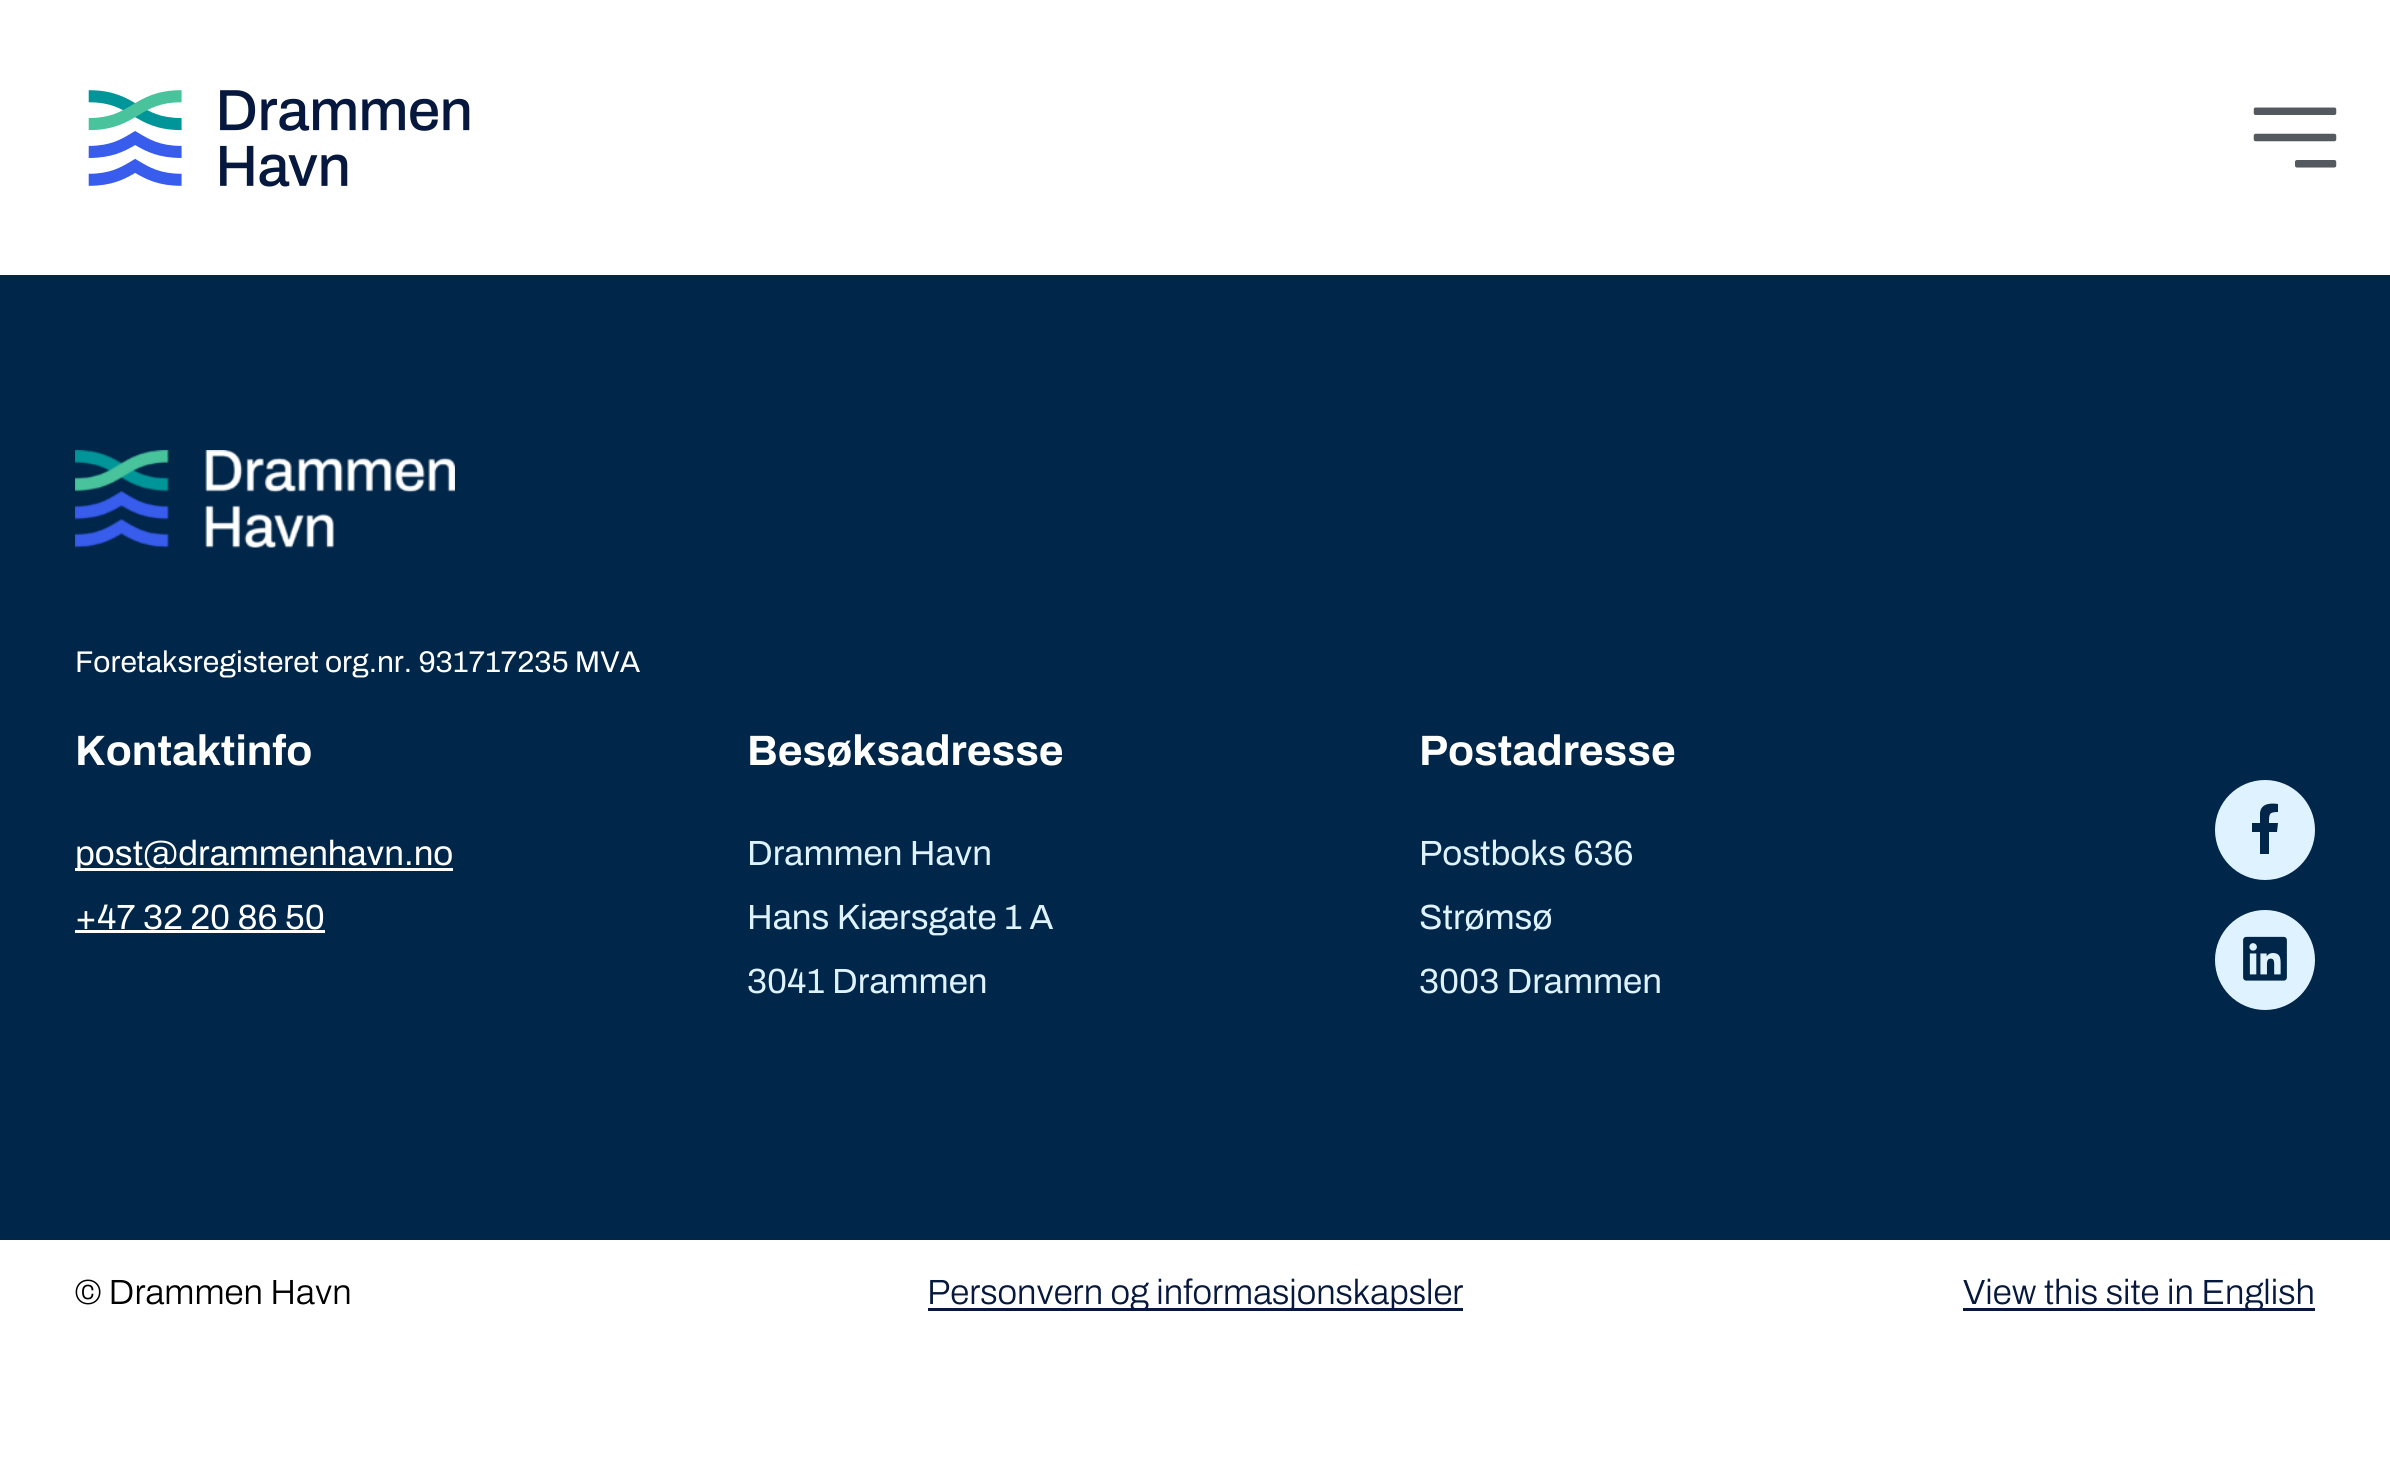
import math
import cairo


def use_color(cr, r, g, b):
  cr.set_source_rgb(r / 255, g / 255, b / 255)

def text(cr, x, y, s, family, size, color, bold=False, italic=False):
  cr.select_font_face(family, cairo.FONT_SLANT_ITALIC if italic else cairo.FONT_SLANT_NORMAL, cairo.FONT_WEIGHT_BOLD if bold else cairo.FONT_WEIGHT_NORMAL)
  cr.set_font_size(size)
  use_color(cr, *color)
  cr.move_to(x, y)
  cr.show_text(s)

def box(cr, x, y, w, h, *color):
  use_color(cr, *color)
  cr.rectangle(x, y, w, h)
  cr.fill()

def picture(cr, path, x, y, w, h):
  cr.save()
  cr.set_source_surface(cairo.ImageSurface.create_from_png(path), x, y)
  cr.rectangle(x, y, w, h)
  cr.fill()
  cr.restore()

def draw(cr):
  use_color(cr, 255, 255, 255)
  cr.paint()
  picture(cr, "img_01.png", 88, 90, 382, 97)
  picture(cr, "img_02.png", 2253, 107, 84, 61)
  box(cr, 0, 275, 2390, 965, 0, 38, 73)
  picture(cr, "img_03.png", 75, 450, 380, 98)
  box(cr, 75, 868, 378, 3, 255, 255, 255)
  box(cr, 75, 930, 250, 3, 255, 255, 255)
  use_color(cr, 222, 242, 255)
  cr.arc(2265, 830, 50, 0, 2 * math.pi)
  cr.fill()
  use_color(cr, 0, 38, 73)
  cr.new_path()
  cr.move_to(2277, 832)
  cr.line_to(2269, 832)
  cr.line_to(2269, 854)
  cr.line_to(2260, 854)
  cr.line_to(2260, 832)
  cr.line_to(2252, 832)
  cr.line_to(2252, 823)
  cr.line_to(2260, 823)
  cr.line_to(2260, 813)
  cr.curve_to(2261, 803, 2271, 803, 2278, 804)
  cr.line_to(2278, 812)
  cr.curve_to(2269, 812, 2269, 814, 2269, 823)
  cr.line_to(2278, 823)
  cr.close_path()
  cr.fill()
  use_color(cr, 222, 242, 255)
  cr.arc(2265, 960, 50, 0, 2 * math.pi)
  cr.fill()
  picture(cr, "img_04.png", 2243, 936, 44, 45)
  box(cr, 928, 1308, 535, 3, 6, 24, 61)
  box(cr, 1963, 1308, 352, 3, 6, 24, 61)
  text(cr, 75, 672, "Foretaksregisteret org.nr. 931717235 MVA", "Archivo", 30, (255, 255, 255))
  text(cr, 75, 765, "Kontaktinfo", "Archivo", 42.5, (255, 255, 255), bold=True)
  text(cr, 75, 865, "post@drammenhavn.no", "Archivo", 35, (255, 255, 255))
  text(cr, 75, 929, "+47 32 20 86 50", "Archivo", 35, (255, 255, 255))
  text(cr, 747, 765, "Besøksadresse", "Archivo", 42.5, (255, 255, 255), bold=True)
  text(cr, 747, 865, "Drammen Havn", "Archivo", 35, (222, 242, 255))
  text(cr, 747, 929, "Hans Kiærsgate 1 A", "Archivo", 35, (222, 242, 255))
  text(cr, 747, 993, "3041 Drammen", "Archivo", 35, (222, 242, 255))
  text(cr, 1419, 765, "Postadresse", "Archivo", 42.5, (255, 255, 255), bold=True)
  text(cr, 1419, 865, "Postboks 636", "Archivo", 35, (222, 242, 255))
  text(cr, 1419, 929, "Strømsø", "Archivo", 35, (222, 242, 255))
  text(cr, 1419, 993, "3003 Drammen", "Archivo", 35, (222, 242, 255))
  text(cr, 75, 1304, "© Drammen Havn", "Archivo Light", 35, (0, 0, 0))
  text(cr, 927, 1304, "Personvern og informasjonskapsler", "Archivo Light", 35, (6, 24, 61))
  text(cr, 1963, 1304, "View this site in English", "Archivo Light", 35, (6, 24, 61))


surface = cairo.ImageSurface(cairo.FORMAT_RGB24, 2390, 1465)
cr = cairo.Context(surface)
options = cairo.FontOptions()
options.set_hint_metrics(cairo.HINT_METRICS_OFF)
options.set_hint_style(cairo.HINT_STYLE_NONE)
cr.set_font_options(options)
cr.set_miter_limit(4)
draw(cr)
surface.write_to_png("out.png")
